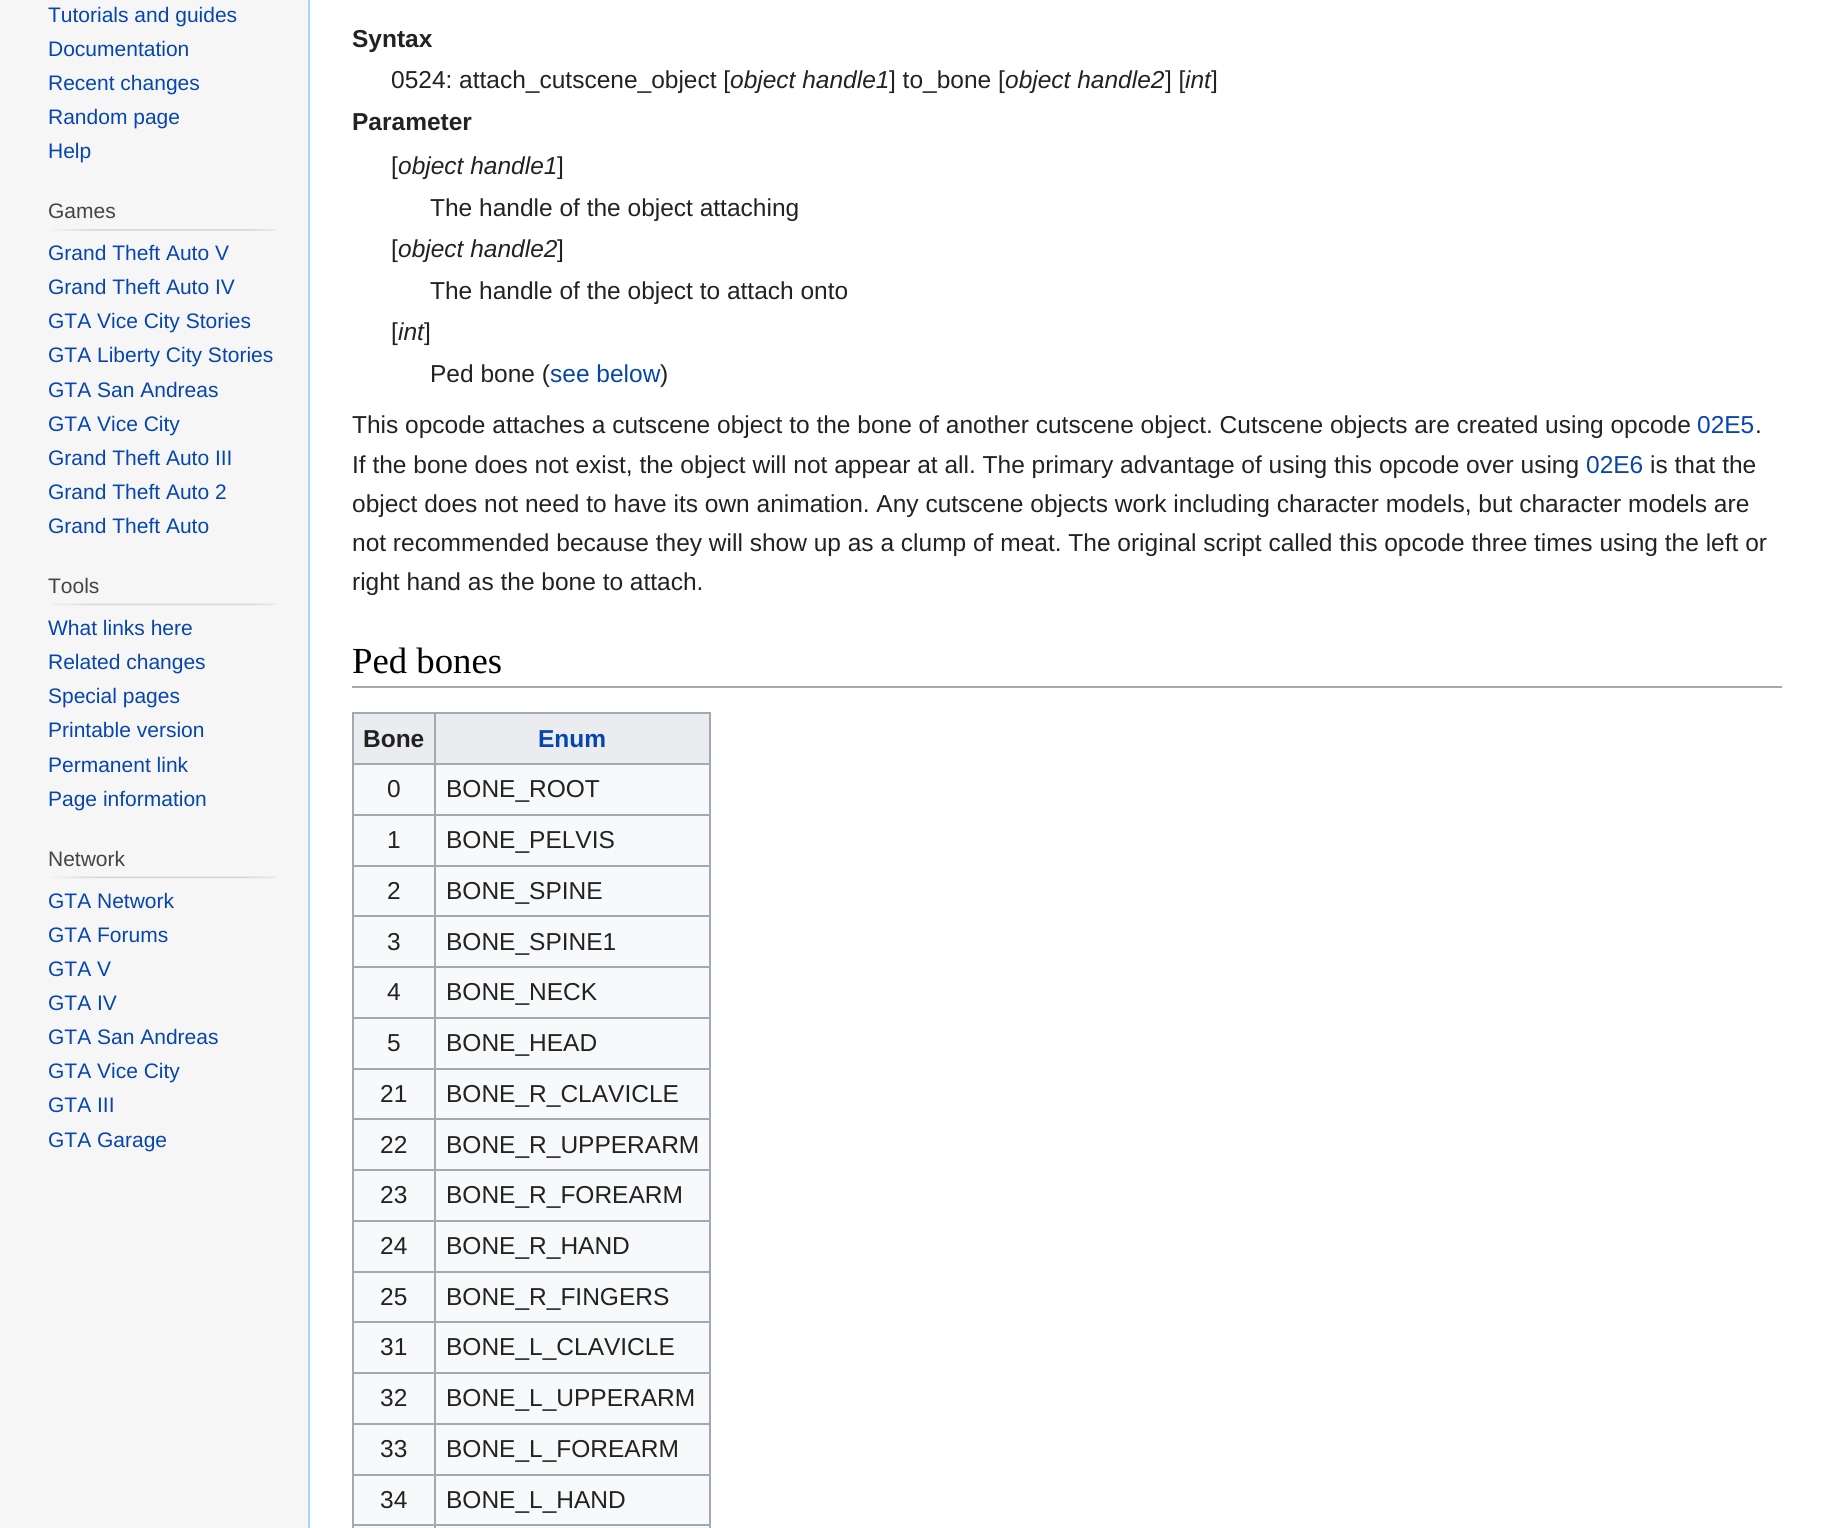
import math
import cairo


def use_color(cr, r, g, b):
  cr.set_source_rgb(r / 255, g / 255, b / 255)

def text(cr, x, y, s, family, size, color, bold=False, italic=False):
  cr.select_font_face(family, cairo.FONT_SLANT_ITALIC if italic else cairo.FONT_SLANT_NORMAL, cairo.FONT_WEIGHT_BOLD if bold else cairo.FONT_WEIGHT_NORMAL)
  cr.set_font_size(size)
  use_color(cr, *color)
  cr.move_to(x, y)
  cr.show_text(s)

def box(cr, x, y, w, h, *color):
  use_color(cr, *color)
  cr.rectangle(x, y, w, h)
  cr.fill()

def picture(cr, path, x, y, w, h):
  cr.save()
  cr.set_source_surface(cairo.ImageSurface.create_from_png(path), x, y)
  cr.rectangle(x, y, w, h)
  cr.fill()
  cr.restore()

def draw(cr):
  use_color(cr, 246, 246, 246)
  cr.paint()
  picture(cr, "img_01.png", 52, 229, 225, 2)
  picture(cr, "img_02.png", 52, 603, 225, 3)
  picture(cr, "img_02.png", 52, 876, 225, 3)
  box(cr, 310, 0, 1512, 1528, 255, 255, 255)
  box(cr, 308, 0, 2, 1528, 167, 215, 249)
  box(cr, 352, 686, 1430, 2, 162, 169, 177)
  box(cr, 354, 765, 355, 763, 248, 249, 250)
  box(cr, 352, 712, 359, 2, 162, 169, 177)
  box(cr, 709, 712, 2, 816, 162, 169, 177)
  box(cr, 352, 712, 2, 816, 162, 169, 177)
  box(cr, 354, 714, 80, 49, 234, 236, 240)
  box(cr, 436, 714, 273, 49, 234, 236, 240)
  box(cr, 434, 763, 277, 2, 162, 169, 177)
  box(cr, 434, 814, 277, 2, 162, 169, 177)
  box(cr, 434, 865, 277, 2, 162, 169, 177)
  box(cr, 434, 915, 277, 2, 162, 169, 177)
  box(cr, 434, 966, 277, 2, 162, 169, 177)
  box(cr, 434, 1017, 277, 2, 162, 169, 177)
  box(cr, 434, 1068, 277, 2, 162, 169, 177)
  box(cr, 434, 1118, 277, 2, 162, 169, 177)
  box(cr, 434, 1169, 277, 2, 162, 169, 177)
  box(cr, 434, 1220, 277, 2, 162, 169, 177)
  box(cr, 434, 1271, 277, 2, 162, 169, 177)
  box(cr, 434, 1321, 277, 2, 162, 169, 177)
  box(cr, 434, 1372, 277, 2, 162, 169, 177)
  box(cr, 434, 1423, 277, 2, 162, 169, 177)
  box(cr, 434, 1474, 277, 2, 162, 169, 177)
  box(cr, 434, 1524, 277, 2, 162, 169, 177)
  box(cr, 434, 1524, 2, 4, 162, 169, 177)
  box(cr, 352, 1524, 84, 2, 162, 169, 177)
  box(cr, 434, 1474, 2, 52, 162, 169, 177)
  box(cr, 352, 1474, 84, 2, 162, 169, 177)
  box(cr, 434, 1423, 2, 52, 162, 169, 177)
  box(cr, 352, 1423, 84, 2, 162, 169, 177)
  box(cr, 434, 1372, 2, 53, 162, 169, 177)
  box(cr, 352, 1372, 84, 2, 162, 169, 177)
  box(cr, 434, 1321, 2, 53, 162, 169, 177)
  box(cr, 352, 1321, 84, 2, 162, 169, 177)
  box(cr, 434, 1271, 2, 52, 162, 169, 177)
  box(cr, 352, 1271, 84, 2, 162, 169, 177)
  box(cr, 434, 1220, 2, 52, 162, 169, 177)
  box(cr, 352, 1220, 84, 2, 162, 169, 177)
  box(cr, 434, 1169, 2, 53, 162, 169, 177)
  box(cr, 352, 1169, 84, 2, 162, 169, 177)
  box(cr, 434, 1118, 2, 53, 162, 169, 177)
  box(cr, 352, 1118, 84, 2, 162, 169, 177)
  box(cr, 434, 1068, 2, 52, 162, 169, 177)
  box(cr, 352, 1068, 84, 2, 162, 169, 177)
  box(cr, 434, 1017, 2, 52, 162, 169, 177)
  box(cr, 352, 1017, 84, 2, 162, 169, 177)
  box(cr, 434, 966, 2, 53, 162, 169, 177)
  box(cr, 352, 966, 84, 2, 162, 169, 177)
  box(cr, 434, 915, 2, 53, 162, 169, 177)
  box(cr, 352, 915, 84, 2, 162, 169, 177)
  box(cr, 434, 865, 2, 52, 162, 169, 177)
  box(cr, 352, 865, 84, 2, 162, 169, 177)
  box(cr, 434, 814, 2, 52, 162, 169, 177)
  box(cr, 352, 814, 84, 2, 162, 169, 177)
  box(cr, 434, 763, 2, 53, 162, 169, 177)
  box(cr, 352, 763, 84, 2, 162, 169, 177)
  box(cr, 434, 712, 2, 53, 162, 169, 177)
  text(cr, 48, 22, "Tutorials and guides", "Liberation Sans", 21, (6, 69, 173))
  text(cr, 48, 56, "Documentation", "Liberation Sans", 21, (6, 69, 173))
  text(cr, 48, 90, "Recent changes", "Liberation Sans", 21, (6, 69, 173))
  text(cr, 48, 124, "Random page", "Liberation Sans", 21, (6, 69, 173))
  text(cr, 48, 158, "Help", "Liberation Sans", 21, (6, 69, 173))
  text(cr, 48, 218, "Games", "Liberation Sans", 21, (68, 68, 68))
  text(cr, 48, 260, "Grand Theft Auto V", "Liberation Sans", 21, (6, 69, 173))
  text(cr, 48, 294, "Grand Theft Auto IV", "Liberation Sans", 21, (6, 69, 173))
  text(cr, 48, 328, "GTA Vice City Stories", "Liberation Sans", 21, (6, 69, 173))
  text(cr, 48, 362, "GTA Liberty City Stories", "Liberation Sans", 21, (6, 69, 173))
  text(cr, 48, 397, "GTA San Andreas", "Liberation Sans", 21, (6, 69, 173))
  text(cr, 48, 431, "GTA Vice City", "Liberation Sans", 21, (6, 69, 173))
  text(cr, 48, 465, "Grand Theft Auto III", "Liberation Sans", 21, (6, 69, 173))
  text(cr, 48, 499, "Grand Theft Auto 2", "Liberation Sans", 21, (6, 69, 173))
  text(cr, 48, 533, "Grand Theft Auto", "Liberation Sans", 21, (6, 69, 173))
  text(cr, 48, 593, "Tools", "Liberation Sans", 21, (68, 68, 68))
  text(cr, 48, 635, "What links here", "Liberation Sans", 21, (6, 69, 173))
  text(cr, 48, 669, "Related changes", "Liberation Sans", 21, (6, 69, 173))
  text(cr, 48, 703, "Special pages", "Liberation Sans", 21, (6, 69, 173))
  text(cr, 48, 737, "Printable version", "Liberation Sans", 21, (6, 69, 173))
  text(cr, 48, 772, "Permanent link", "Liberation Sans", 21, (6, 69, 173))
  text(cr, 48, 806, "Page information", "Liberation Sans", 21, (6, 69, 173))
  text(cr, 48, 866, "Network", "Liberation Sans", 21, (68, 68, 68))
  text(cr, 48, 908, "GTA Network", "Liberation Sans", 21, (6, 69, 173))
  text(cr, 48, 942, "GTA Forums", "Liberation Sans", 21, (6, 69, 173))
  text(cr, 48, 976, "GTA V", "Liberation Sans", 21, (6, 69, 173))
  text(cr, 48, 1010, "GTA IV", "Liberation Sans", 21, (6, 69, 173))
  text(cr, 48, 1044, "GTA San Andreas", "Liberation Sans", 21, (6, 69, 173))
  text(cr, 48, 1078, "GTA Vice City", "Liberation Sans", 21, (6, 69, 173))
  text(cr, 48, 1112, "GTA III", "Liberation Sans", 21, (6, 69, 173))
  text(cr, 48, 1147, "GTA Garage", "Liberation Sans", 21, (6, 69, 173))
  text(cr, 352, 47, "Syntax", "Liberation Sans", 24.5, (34, 34, 34), bold=True)
  text(cr, 391, 88, "0524: attach_cutscene_object [", "Liberation Sans", 24.5, (34, 34, 34))
  text(cr, 730, 88, "object handle1", "Liberation Sans", 24.5, (34, 34, 34), italic=True)
  text(cr, 889, 88, "] to_bone [", "Liberation Sans", 24.5, (34, 34, 34))
  text(cr, 1005, 88, "object handle2", "Liberation Sans", 24.5, (34, 34, 34), italic=True)
  text(cr, 1165, 88, "] [", "Liberation Sans", 24.5, (34, 34, 34))
  text(cr, 1185, 88, "int", "Liberation Sans", 24.5, (34, 34, 34), italic=True)
  text(cr, 1211, 88, "]", "Liberation Sans", 24.5, (34, 34, 34))
  text(cr, 352, 130, "Parameter", "Liberation Sans", 24.5, (34, 34, 34), bold=True)
  text(cr, 391, 174, "[", "Liberation Sans", 24.5, (34, 34, 34))
  text(cr, 398, 174, "object handle1", "Liberation Sans", 24.5, (34, 34, 34), italic=True)
  text(cr, 557, 174, "]", "Liberation Sans", 24.5, (34, 34, 34))
  text(cr, 430, 216, "The handle of the object attaching", "Liberation Sans", 24.5, (34, 34, 34))
  text(cr, 391, 257, "[", "Liberation Sans", 24.5, (34, 34, 34))
  text(cr, 398, 257, "object handle2", "Liberation Sans", 24.5, (34, 34, 34), italic=True)
  text(cr, 557, 257, "]", "Liberation Sans", 24.5, (34, 34, 34))
  text(cr, 430, 299, "The handle of the object to attach onto", "Liberation Sans", 24.5, (34, 34, 34))
  text(cr, 391, 340, "[", "Liberation Sans", 24.5, (34, 34, 34))
  text(cr, 398, 340, "int", "Liberation Sans", 24.5, (34, 34, 34), italic=True)
  text(cr, 424, 340, "]", "Liberation Sans", 24.5, (34, 34, 34))
  text(cr, 430, 382, "Ped bone (", "Liberation Sans", 24.5, (34, 34, 34))
  text(cr, 550, 382, "see below", "Liberation Sans", 24.5, (6, 69, 173))
  text(cr, 660, 382, ")", "Liberation Sans", 24.5, (34, 34, 34))
  text(cr, 352, 433, "This opcode attaches a cutscene object to the bone of another cutscene object. Cutscene objects are created using opcode", "Liberation Sans", 24.5, (34, 34, 34))
  text(cr, 1697, 433, "02E5", "Liberation Sans", 24.5, (6, 69, 173))
  text(cr, 1755, 433, ".", "Liberation Sans", 24.5, (34, 34, 34))
  text(cr, 352, 473, "If the bone does not exist, the object will not appear at all. The primary advantage of using this opcode over using", "Liberation Sans", 24.5, (34, 34, 34))
  text(cr, 1586, 473, "02E6", "Liberation Sans", 24.5, (6, 69, 173))
  text(cr, 1650, 473, "is that the", "Liberation Sans", 24.5, (34, 34, 34))
  text(cr, 352, 512, "object does not need to have its own animation. Any cutscene objects work including character models, but character models are", "Liberation Sans", 24.5, (34, 34, 34))
  text(cr, 352, 551, "not recommended because they will show up as a clump of meat. The original script called this opcode three times using the left or", "Liberation Sans", 24.5, (34, 34, 34))
  text(cr, 352, 590, "right hand as the bone to attach.", "Liberation Sans", 24.5, (34, 34, 34))
  text(cr, 352, 673, "Ped bones", "Liberation Serif", 36.75, (0, 0, 0))
  text(cr, 363, 747, "Bone", "Liberation Sans", 24.5, (34, 34, 34), bold=True)
  text(cr, 538, 747, "Enum", "Liberation Sans", 24.5, (6, 69, 173), bold=True)
  text(cr, 387, 797, "0", "Liberation Sans", 24.5, (34, 34, 34))
  text(cr, 446, 797, "BONE_ROOT", "Liberation Sans", 24.5, (34, 34, 34))
  text(cr, 387, 848, "1", "Liberation Sans", 24.5, (34, 34, 34))
  text(cr, 446, 848, "BONE_PELVIS", "Liberation Sans", 24.5, (34, 34, 34))
  text(cr, 387, 899, "2", "Liberation Sans", 24.5, (34, 34, 34))
  text(cr, 446, 899, "BONE_SPINE", "Liberation Sans", 24.5, (34, 34, 34))
  text(cr, 387, 950, "3", "Liberation Sans", 24.5, (34, 34, 34))
  text(cr, 446, 950, "BONE_SPINE1", "Liberation Sans", 24.5, (34, 34, 34))
  text(cr, 387, 1000, "4", "Liberation Sans", 24.5, (34, 34, 34))
  text(cr, 446, 1000, "BONE_NECK", "Liberation Sans", 24.5, (34, 34, 34))
  text(cr, 387, 1051, "5", "Liberation Sans", 24.5, (34, 34, 34))
  text(cr, 446, 1051, "BONE_HEAD", "Liberation Sans", 24.5, (34, 34, 34))
  text(cr, 380, 1102, "21", "Liberation Sans", 24.5, (34, 34, 34))
  text(cr, 446, 1102, "BONE_R_CLAVICLE", "Liberation Sans", 24.5, (34, 34, 34))
  text(cr, 380, 1153, "22", "Liberation Sans", 24.5, (34, 34, 34))
  text(cr, 446, 1153, "BONE_R_UPPERARM", "Liberation Sans", 24.5, (34, 34, 34))
  text(cr, 380, 1203, "23", "Liberation Sans", 24.5, (34, 34, 34))
  text(cr, 446, 1203, "BONE_R_FOREARM", "Liberation Sans", 24.5, (34, 34, 34))
  text(cr, 380, 1254, "24", "Liberation Sans", 24.5, (34, 34, 34))
  text(cr, 446, 1254, "BONE_R_HAND", "Liberation Sans", 24.5, (34, 34, 34))
  text(cr, 380, 1305, "25", "Liberation Sans", 24.5, (34, 34, 34))
  text(cr, 446, 1305, "BONE_R_FINGERS", "Liberation Sans", 24.5, (34, 34, 34))
  text(cr, 380, 1355, "31", "Liberation Sans", 24.5, (34, 34, 34))
  text(cr, 446, 1355, "BONE_L_CLAVICLE", "Liberation Sans", 24.5, (34, 34, 34))
  text(cr, 380, 1406, "32", "Liberation Sans", 24.5, (34, 34, 34))
  text(cr, 446, 1406, "BONE_L_UPPERARM", "Liberation Sans", 24.5, (34, 34, 34))
  text(cr, 380, 1457, "33", "Liberation Sans", 24.5, (34, 34, 34))
  text(cr, 446, 1457, "BONE_L_FOREARM", "Liberation Sans", 24.5, (34, 34, 34))
  text(cr, 380, 1508, "34", "Liberation Sans", 24.5, (34, 34, 34))
  text(cr, 446, 1508, "BONE_L_HAND", "Liberation Sans", 24.5, (34, 34, 34))


surface = cairo.ImageSurface(cairo.FORMAT_RGB24, 1822, 1528)
cr = cairo.Context(surface)
options = cairo.FontOptions()
options.set_hint_metrics(cairo.HINT_METRICS_OFF)
options.set_hint_style(cairo.HINT_STYLE_NONE)
cr.set_font_options(options)
cr.set_miter_limit(4)
draw(cr)
surface.write_to_png("out.png")
